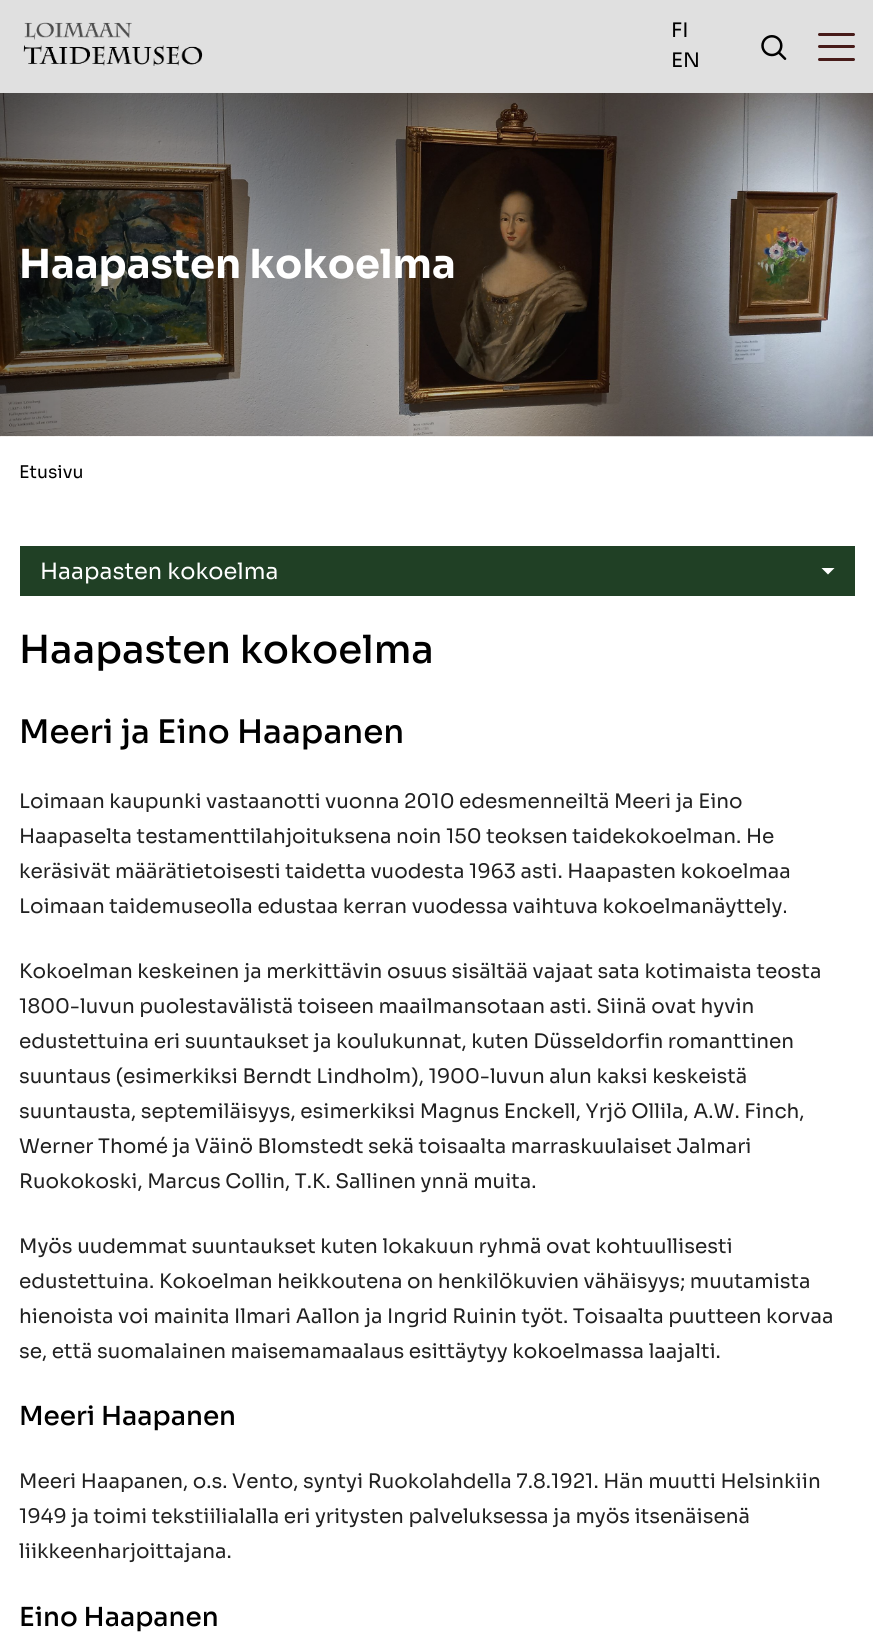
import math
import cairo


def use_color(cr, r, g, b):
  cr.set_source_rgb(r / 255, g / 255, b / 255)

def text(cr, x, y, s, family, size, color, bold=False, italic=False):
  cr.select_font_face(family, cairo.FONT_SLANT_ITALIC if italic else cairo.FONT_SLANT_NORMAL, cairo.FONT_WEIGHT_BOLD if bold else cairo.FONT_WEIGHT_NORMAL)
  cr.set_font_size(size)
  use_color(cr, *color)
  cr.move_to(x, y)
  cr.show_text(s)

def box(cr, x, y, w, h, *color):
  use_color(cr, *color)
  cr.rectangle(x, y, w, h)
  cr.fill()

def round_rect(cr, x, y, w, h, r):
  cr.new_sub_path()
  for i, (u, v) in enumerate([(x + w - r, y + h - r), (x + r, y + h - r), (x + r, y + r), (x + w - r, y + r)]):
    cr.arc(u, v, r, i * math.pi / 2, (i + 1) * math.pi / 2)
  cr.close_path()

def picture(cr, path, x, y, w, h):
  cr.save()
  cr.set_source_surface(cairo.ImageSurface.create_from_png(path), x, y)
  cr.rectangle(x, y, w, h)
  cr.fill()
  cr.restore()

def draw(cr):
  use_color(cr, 255, 255, 255)
  cr.paint()
  box(cr, 0, 0, 873, 93, 224, 224, 224)
  picture(cr, "img_01.png", 23, 22, 180, 44)
  picture(cr, "img_02.png", 761, 35, 26, 25)
  use_color(cr, 71, 27, 25)
  round_rect(cr, 818, 33, 37, 3, 1.5)
  cr.fill()
  round_rect(cr, 818, 45, 37, 3, 1.5)
  cr.fill()
  round_rect(cr, 818, 58, 37, 3, 1.5)
  cr.fill()
  picture(cr, "img_03.png", 0, 93, 873, 344)
  box(cr, 20, 546, 835, 50, 32, 64, 37)
  cr.save()
  cr.rectangle(821, 568, 14, 7)
  cr.clip()
  use_color(cr, 255, 255, 255)
  cr.new_path()
  cr.move_to(835, 567.5)
  cr.line_to(828, 574.5)
  cr.line_to(821, 567.5)
  cr.close_path()
  cr.fill()
  cr.restore()
  text(cr, 671, 37, "FI", "Sora", 20, (0, 0, 0))
  text(cr, 671, 67, "EN", "Sora", 20, (0, 0, 0))
  text(cr, 19, 278, "Haapasten kokoelma", "Sora", 40, (255, 255, 255), bold=True)
  text(cr, 19, 478, "Etusivu", "Sora", 17.5, (0, 0, 0))
  text(cr, 40, 579, "Haapasten kokoelma", "Sora", 22.5, (255, 255, 255))
  text(cr, 19, 663, "Haapasten kokoelma", "Sora Medium", 38.75, (0, 0, 0))
  text(cr, 19, 743, "Meeri ja Eino Haapanen", "Sora Medium", 32.5, (0, 0, 0))
  text(cr, 19, 808, "Loimaan kaupunki vastaanotti vuonna 2010 edesmenneiltä Meeri ja Eino", "Sora", 20, (33, 33, 33))
  text(cr, 19, 843, "Haapaselta testamenttilahjoituksena noin 150 teoksen taidekokoelman. He", "Sora", 20, (33, 33, 33))
  text(cr, 19, 878, "keräsivät määrätietoisesti taidetta vuodesta 1963 asti. Haapasten kokoelmaa", "Sora", 20, (33, 33, 33))
  text(cr, 19, 913, "Loimaan taidemuseolla edustaa kerran vuodessa vaihtuva kokoelmanäyttely.", "Sora", 20, (33, 33, 33))
  text(cr, 19, 978, "Kokoelman keskeinen ja merkittävin osuus sisältää vajaat sata kotimaista teosta", "Sora", 20, (33, 33, 33))
  text(cr, 19, 1013, "1800-luvun puolestavälistä toiseen maailmansotaan asti. Siinä ovat hyvin", "Sora", 20, (33, 33, 33))
  text(cr, 19, 1048, "edustettuina eri suuntaukset ja koulukunnat, kuten Düsseldorfin romanttinen", "Sora", 20, (33, 33, 33))
  text(cr, 19, 1083, "suuntaus (esimerkiksi Berndt Lindholm), 1900-luvun alun kaksi keskeistä", "Sora", 20, (33, 33, 33))
  text(cr, 19, 1118, "suuntausta, septemiläisyys, esimerkiksi Magnus Enckell, Yrjö Ollila, A.W. Finch,", "Sora", 20, (33, 33, 33))
  text(cr, 19, 1153, "Werner Thomé ja Väinö Blomstedt sekä toisaalta marraskuulaiset Jalmari", "Sora", 20, (33, 33, 33))
  text(cr, 19, 1188, "Ruokokoski, Marcus Collin, T.K. Sallinen ynnä muita.", "Sora", 20, (33, 33, 33))
  text(cr, 19, 1253, "Myös uudemmat suuntaukset kuten lokakuun ryhmä ovat kohtuullisesti", "Sora", 20, (33, 33, 33))
  text(cr, 19, 1288, "edustettuina. Kokoelman heikkoutena on henkilökuvien vähäisyys; muutamista", "Sora", 20, (33, 33, 33))
  text(cr, 19, 1323, "hienoista voi mainita Ilmari Aallon ja Ingrid Ruinin työt. Toisaalta puutteen korvaa", "Sora", 20, (33, 33, 33))
  text(cr, 19, 1358, "se, että suomalainen maisemamaalaus esittäytyy kokoelmassa laajalti.", "Sora", 20, (33, 33, 33))
  text(cr, 19, 1425, "Meeri Haapanen", "Sora Medium", 26.25, (0, 0, 0))
  text(cr, 19, 1488, "Meeri Haapanen, o.s. Vento, syntyi Ruokolahdella 7.8.1921. Hän muutti Helsinkiin", "Sora", 20, (33, 33, 33))
  text(cr, 19, 1523, "1949 ja toimi tekstiilialalla eri yritysten palveluksessa ja myös itsenäisenä", "Sora", 20, (33, 33, 33))
  text(cr, 19, 1558, "liikkeenharjoittajana.", "Sora", 20, (33, 33, 33))
  text(cr, 19, 1626, "Eino Haapanen", "Sora Medium", 26.25, (0, 0, 0))


surface = cairo.ImageSurface(cairo.FORMAT_RGB24, 873, 1651)
cr = cairo.Context(surface)
options = cairo.FontOptions()
options.set_hint_metrics(cairo.HINT_METRICS_OFF)
options.set_hint_style(cairo.HINT_STYLE_NONE)
cr.set_font_options(options)
cr.set_miter_limit(4)
draw(cr)
surface.write_to_png("out.png")
